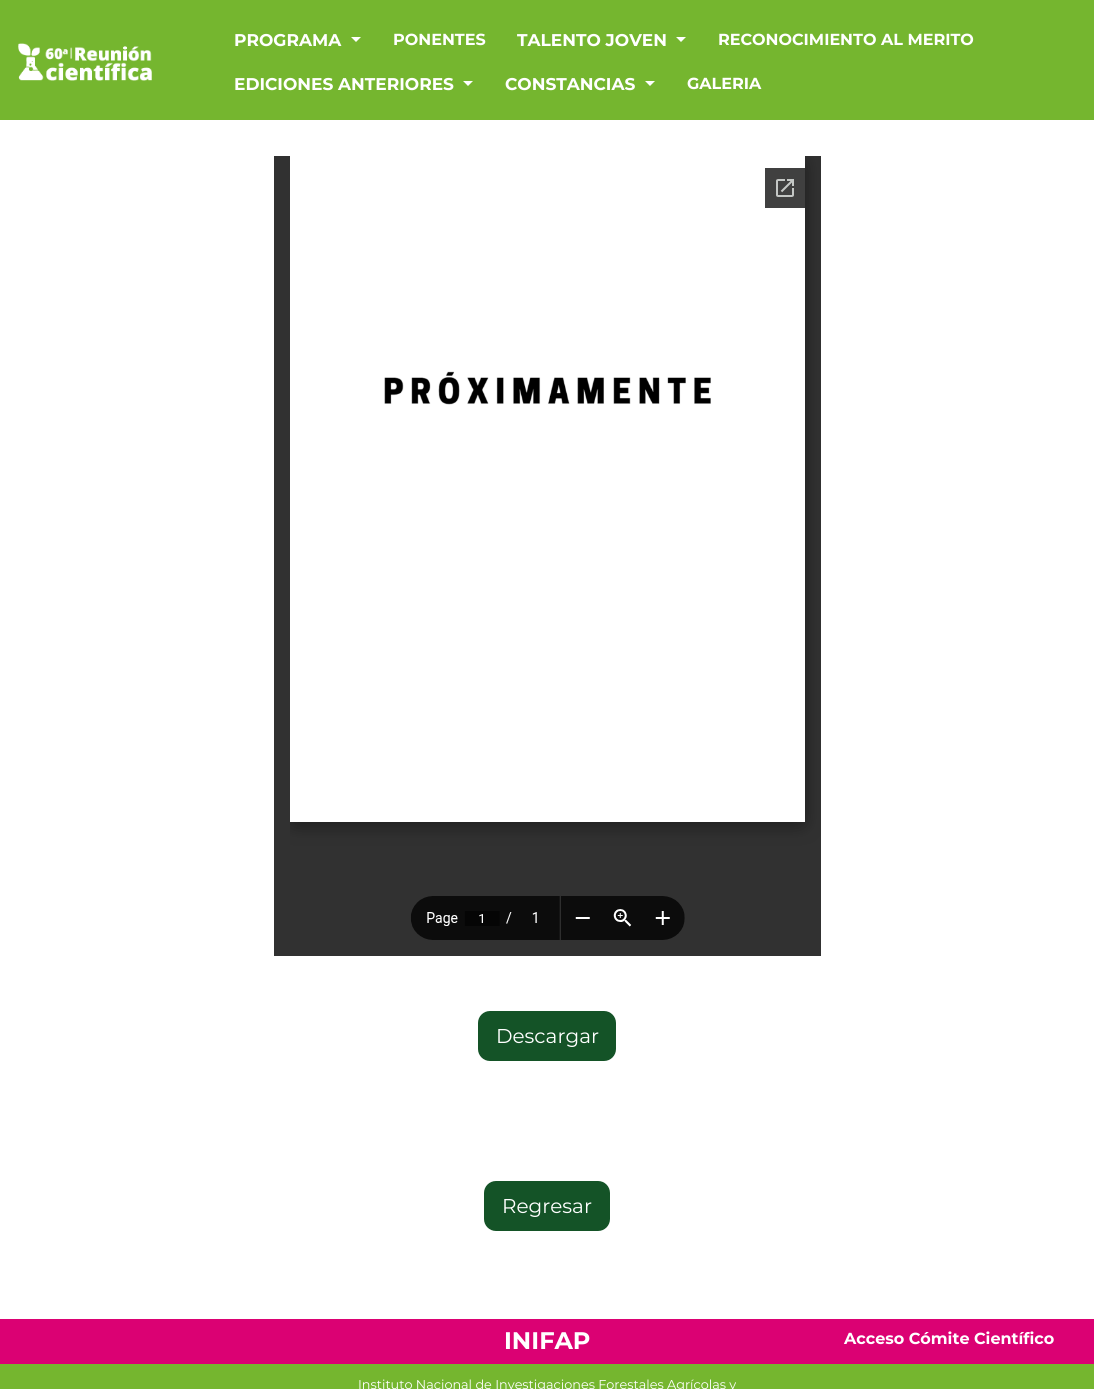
import math
import cairo


def use_color(cr, r, g, b):
  cr.set_source_rgb(r / 255, g / 255, b / 255)

def text(cr, x, y, s, family, size, color, bold=False, italic=False):
  cr.select_font_face(family, cairo.FONT_SLANT_ITALIC if italic else cairo.FONT_SLANT_NORMAL, cairo.FONT_WEIGHT_BOLD if bold else cairo.FONT_WEIGHT_NORMAL)
  cr.set_font_size(size)
  use_color(cr, *color)
  cr.move_to(x, y)
  cr.show_text(s)

def box(cr, x, y, w, h, *color):
  use_color(cr, *color)
  cr.rectangle(x, y, w, h)
  cr.fill()

def round_rect(cr, x, y, w, h, r):
  cr.new_sub_path()
  for i, (u, v) in enumerate([(x + w - r, y + h - r), (x + r, y + h - r), (x + r, y + r), (x + w - r, y + r)]):
    cr.arc(u, v, r, i * math.pi / 2, (i + 1) * math.pi / 2)
  cr.close_path()

def picture(cr, path, x, y, w, h):
  cr.save()
  cr.set_source_surface(cairo.ImageSurface.create_from_png(path), x, y)
  cr.rectangle(x, y, w, h)
  cr.fill()
  cr.restore()

def draw(cr):
  use_color(cr, 255, 255, 255)
  cr.paint()
  box(cr, 0, 0, 1094, 120, 117, 182, 47)
  picture(cr, "img_01.png", 18, 43, 134, 38)
  use_color(cr, 255, 255, 255)
  cr.new_path()
  cr.move_to(351, 37)
  cr.line_to(361, 37)
  cr.line_to(356, 42)
  cr.close_path()
  cr.fill()
  cr.new_path()
  cr.move_to(676, 37)
  cr.line_to(686, 37)
  cr.line_to(681, 42)
  cr.close_path()
  cr.fill()
  cr.new_path()
  cr.move_to(463, 81)
  cr.line_to(473, 81)
  cr.line_to(468, 86)
  cr.close_path()
  cr.fill()
  cr.new_path()
  cr.move_to(645, 81)
  cr.line_to(655, 81)
  cr.line_to(650, 86)
  cr.close_path()
  cr.fill()
  picture(cr, "img_02.png", 274, 156, 547, 800)
  use_color(cr, 20, 83, 39)
  round_rect(cr, 479, 1012, 136, 48, 11)
  cr.fill_preserve()
  cr.stroke()
  round_rect(cr, 485, 1182, 124, 48, 11)
  cr.fill_preserve()
  cr.stroke()
  box(cr, 0, 1319, 1094, 45, 219, 1, 115)
  box(cr, 0, 1364, 1094, 25, 117, 182, 47)
  text(cr, 234, 46, "PROGRAMA", "Montserrat", 17, (255, 255, 255), bold=True)
  text(cr, 393, 45, "PONENTES", "Montserrat", 16, (255, 255, 255), bold=True)
  text(cr, 517, 46, "TALENTO JOVEN", "Montserrat", 17, (255, 255, 255), bold=True)
  text(cr, 718, 45, "RECONOCIMIENTO AL MERITO", "Montserrat", 16, (255, 255, 255), bold=True)
  text(cr, 234, 90, "EDICIONES ANTERIORES", "Montserrat", 17, (255, 255, 255), bold=True)
  text(cr, 505, 90, "CONSTANCIAS", "Montserrat", 17, (255, 255, 255), bold=True)
  text(cr, 687, 89, "GALERIA", "Montserrat", 16, (255, 255, 255), bold=True)
  text(cr, 496, 1043, "Descargar", "Montserrat", 20, (255, 255, 255))
  text(cr, 502, 1213, "Regresar", "Montserrat", 20, (255, 255, 255))
  text(cr, 504, 1349, "INIFAP", "Montserrat", 24, (255, 255, 255), bold=True)
  text(cr, 844, 1344, "Acceso Cómite Científico", "Montserrat", 16, (255, 255, 255), bold=True)
  text(cr, 358, 1389, "Instituto Nacional de Investigaciones Forestales Agrícolas y", "Montserrat", 12.8, (255, 255, 255))


surface = cairo.ImageSurface(cairo.FORMAT_RGB24, 1094, 1389)
cr = cairo.Context(surface)
options = cairo.FontOptions()
options.set_hint_metrics(cairo.HINT_METRICS_OFF)
options.set_hint_style(cairo.HINT_STYLE_NONE)
cr.set_font_options(options)
cr.set_miter_limit(4)
draw(cr)
surface.write_to_png("out.png")
